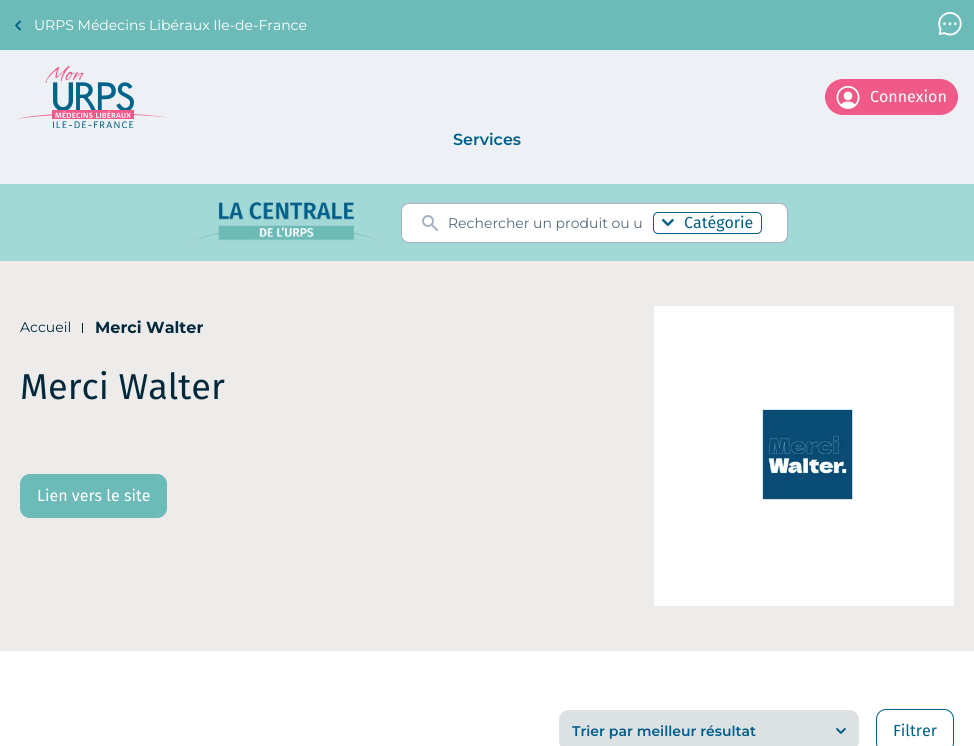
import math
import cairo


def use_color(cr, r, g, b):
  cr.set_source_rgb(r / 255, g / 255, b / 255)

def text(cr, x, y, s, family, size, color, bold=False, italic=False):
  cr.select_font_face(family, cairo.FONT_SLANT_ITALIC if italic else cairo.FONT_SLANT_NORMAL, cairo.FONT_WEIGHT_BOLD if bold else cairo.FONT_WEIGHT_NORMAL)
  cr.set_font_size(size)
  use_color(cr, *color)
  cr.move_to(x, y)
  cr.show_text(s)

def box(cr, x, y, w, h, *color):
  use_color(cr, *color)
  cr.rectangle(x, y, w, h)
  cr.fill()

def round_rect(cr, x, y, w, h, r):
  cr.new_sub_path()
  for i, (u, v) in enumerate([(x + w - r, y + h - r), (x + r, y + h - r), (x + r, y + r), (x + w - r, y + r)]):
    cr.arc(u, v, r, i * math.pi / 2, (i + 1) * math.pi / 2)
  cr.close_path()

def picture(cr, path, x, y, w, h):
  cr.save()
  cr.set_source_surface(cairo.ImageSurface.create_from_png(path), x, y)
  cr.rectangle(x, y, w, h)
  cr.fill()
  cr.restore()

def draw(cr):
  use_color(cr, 255, 255, 255)
  cr.paint()
  box(cr, 0, 0, 974, 50, 109, 187, 184)
  picture(cr, "img_01.png", 15, 20, 6, 11)
  picture(cr, "img_02.png", 938, 12, 24, 24)
  box(cr, 0, 50, 974, 134, 237, 240, 245)
  picture(cr, "img_03.png", 16, 66, 150, 62)
  use_color(cr, 240, 90, 137)
  round_rect(cr, 825.5, 79.5, 132, 35, 17.5)
  cr.fill_preserve()
  cr.set_line_width(1)
  cr.stroke()
  picture(cr, "img_04.png", 836, 85, 24, 24)
  box(cr, 0, 184, 974, 77, 162, 216, 214)
  picture(cr, "img_05.png", 190, 202, 192, 40)
  use_color(cr, 255, 255, 255)
  round_rect(cr, 401.5, 203.5, 386, 39, 7.5)
  cr.fill_preserve()
  use_color(cr, 167, 177, 192)
  cr.stroke()
  picture(cr, "img_06.png", 422, 215, 16, 16)
  round_rect(cr, 653.5, 212.5, 108, 21, 4.5)
  use_color(cr, 0, 95, 137)
  cr.stroke()
  picture(cr, "img_07.png", 662, 219, 12, 7)
  box(cr, 0, 261, 974, 390, 238, 235, 235)
  box(cr, 82, 323, 1, 10, 2, 41, 59)
  use_color(cr, 109, 187, 184)
  round_rect(cr, 20.5, 474.5, 146, 43, 9.5)
  cr.fill_preserve()
  cr.stroke()
  box(cr, 654, 306, 300, 300, 255, 255, 255)
  picture(cr, "img_08.png", 758, 407, 96, 96)
  use_color(cr, 220, 225, 228)
  round_rect(cr, 559, 710, 300, 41, 10)
  cr.fill()
  picture(cr, "img_09.png", 836, 728, 10, 6)
  round_rect(cr, 876.5, 709.5, 77, 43, 9.5)
  use_color(cr, 0, 95, 137)
  cr.stroke()
  text(cr, 34, 30, "URPS Médecins Libéraux Ile-de-France", "Montserrat Thin", 14, (255, 255, 255))
  text(cr, 870, 102, "Connexion", "Fira Sans", 16, (255, 255, 255))
  text(cr, 453, 145, "Services", "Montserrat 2 Thin", 16, (0, 95, 137))
  text(cr, 448, 228, "Rechercher un produit ou u", "Montserrat Thin", 14, (84, 106, 119))
  text(cr, 684, 228, "Catégorie", "Fira Sans", 16, (0, 95, 137))
  text(cr, 20, 332, "Accueil", "Montserrat Thin", 14, (2, 41, 59))
  text(cr, 95, 333, "Merci Walter", "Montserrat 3 Thin", 16, (2, 41, 59))
  text(cr, 20, 399, "Merci Walter", "Fira Sans", 36, (2, 41, 59))
  text(cr, 37, 501, "Lien vers le site", "Fira Sans", 16, (255, 255, 255))
  text(cr, 572, 736, "Trier par meilleur résultat", "Montserrat 2 Thin", 14, (0, 95, 137))
  text(cr, 893, 736, "Filtrer", "Fira Sans", 16, (0, 95, 137))


surface = cairo.ImageSurface(cairo.FORMAT_RGB24, 974, 746)
cr = cairo.Context(surface)
options = cairo.FontOptions()
options.set_hint_metrics(cairo.HINT_METRICS_OFF)
options.set_hint_style(cairo.HINT_STYLE_NONE)
cr.set_font_options(options)
cr.set_miter_limit(4)
draw(cr)
surface.write_to_png("out.png")
